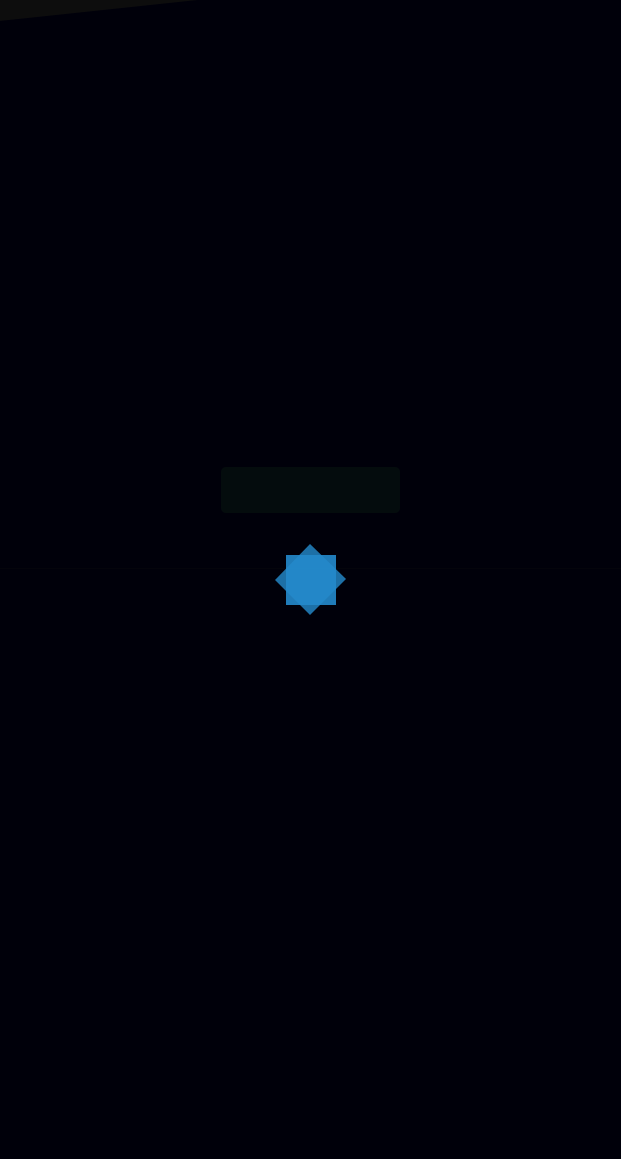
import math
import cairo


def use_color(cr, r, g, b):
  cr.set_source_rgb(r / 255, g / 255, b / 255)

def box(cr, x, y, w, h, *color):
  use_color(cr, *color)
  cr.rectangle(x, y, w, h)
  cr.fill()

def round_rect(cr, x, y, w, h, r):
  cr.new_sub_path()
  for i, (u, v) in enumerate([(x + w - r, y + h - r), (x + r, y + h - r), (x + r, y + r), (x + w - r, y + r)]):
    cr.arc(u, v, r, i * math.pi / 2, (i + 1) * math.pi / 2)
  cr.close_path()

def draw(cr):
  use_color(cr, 0, 0, 10)
  cr.paint()
  use_color(cr, 13, 13, 13)
  cr.new_path()
  cr.move_to(621, -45)
  cr.line_to(621, -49)
  cr.line_to(-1, -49)
  cr.line_to(-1, 21)
  cr.close_path()
  cr.fill()
  use_color(cr, 4, 12, 13)
  round_rect(cr, 221, 467, 179, 46, 5)
  cr.fill()
  box(cr, 286, 555, 50, 50, 32, 124, 185)
  box(cr, 0, 568, 621, 1, 4, 4, 11)
  box(cr, 286, 568, 50, 1, 33, 125, 185)
  cr.set_source_rgba(0.141, 0.541, 0.8, 0.81)
  cr.new_path()
  cr.move_to(310, 544)
  cr.line_to(346, 579)
  cr.line_to(310, 615)
  cr.line_to(275, 580)
  cr.close_path()
  cr.fill()


surface = cairo.ImageSurface(cairo.FORMAT_RGB24, 621, 1159)
cr = cairo.Context(surface)
options = cairo.FontOptions()
options.set_hint_metrics(cairo.HINT_METRICS_OFF)
options.set_hint_style(cairo.HINT_STYLE_NONE)
cr.set_font_options(options)
cr.set_miter_limit(4)
draw(cr)
surface.write_to_png("out.png")
